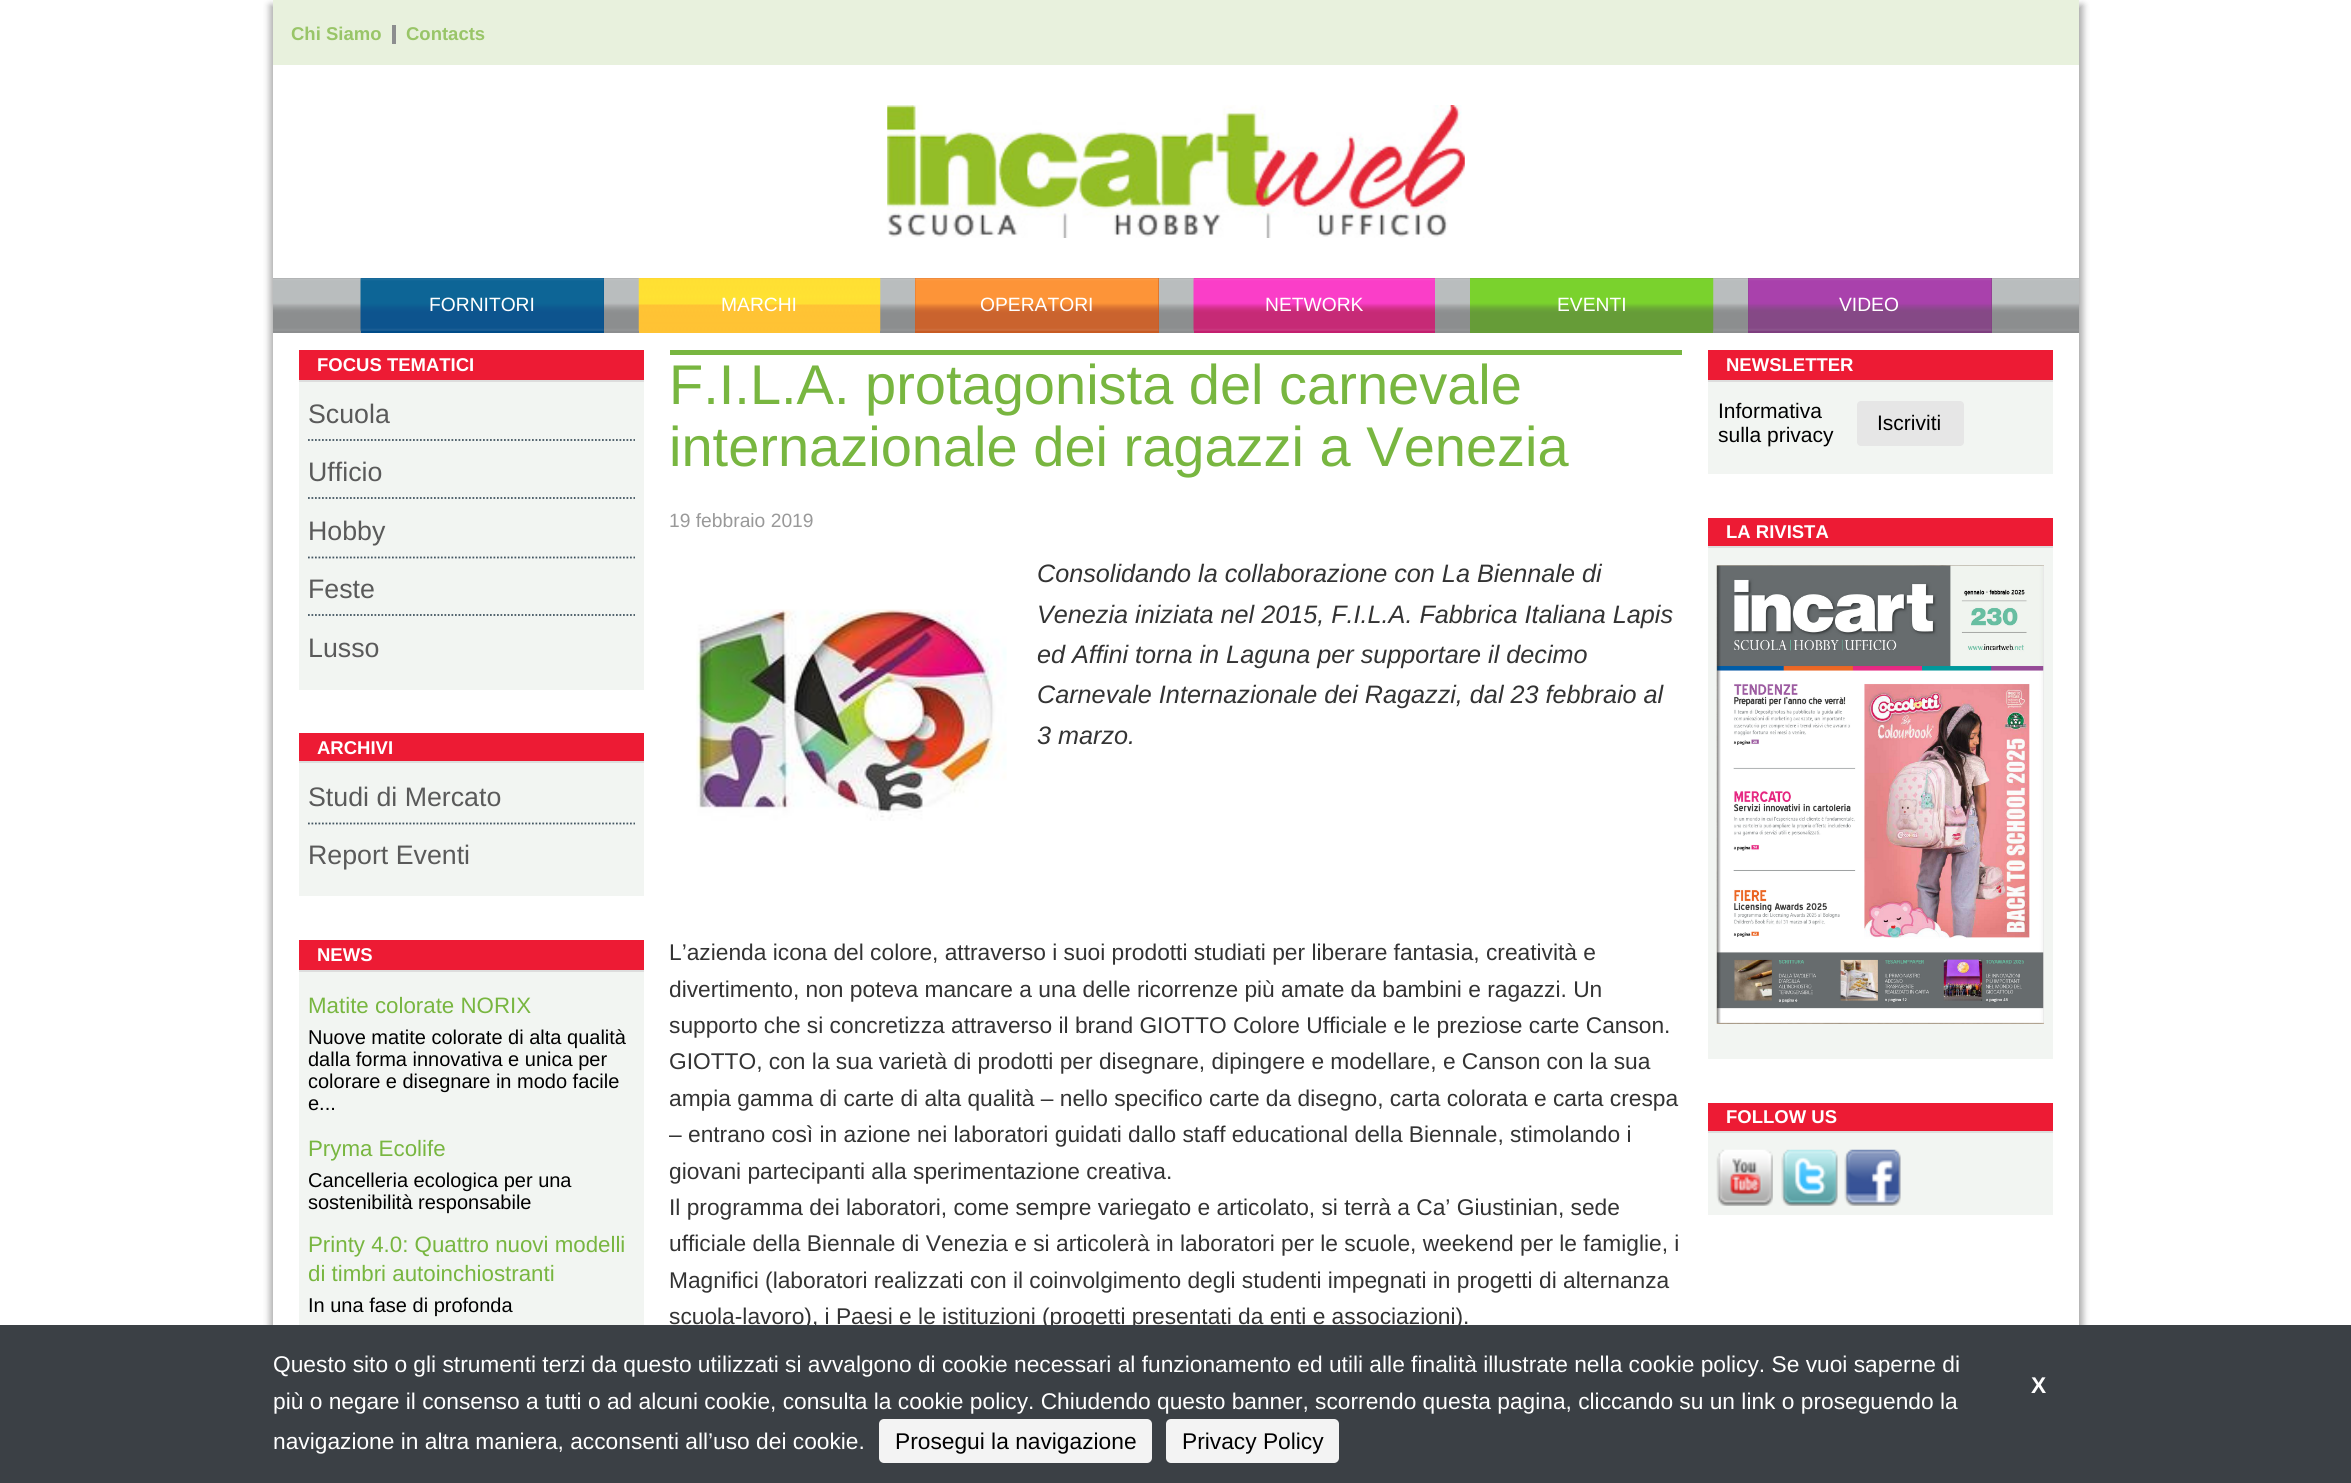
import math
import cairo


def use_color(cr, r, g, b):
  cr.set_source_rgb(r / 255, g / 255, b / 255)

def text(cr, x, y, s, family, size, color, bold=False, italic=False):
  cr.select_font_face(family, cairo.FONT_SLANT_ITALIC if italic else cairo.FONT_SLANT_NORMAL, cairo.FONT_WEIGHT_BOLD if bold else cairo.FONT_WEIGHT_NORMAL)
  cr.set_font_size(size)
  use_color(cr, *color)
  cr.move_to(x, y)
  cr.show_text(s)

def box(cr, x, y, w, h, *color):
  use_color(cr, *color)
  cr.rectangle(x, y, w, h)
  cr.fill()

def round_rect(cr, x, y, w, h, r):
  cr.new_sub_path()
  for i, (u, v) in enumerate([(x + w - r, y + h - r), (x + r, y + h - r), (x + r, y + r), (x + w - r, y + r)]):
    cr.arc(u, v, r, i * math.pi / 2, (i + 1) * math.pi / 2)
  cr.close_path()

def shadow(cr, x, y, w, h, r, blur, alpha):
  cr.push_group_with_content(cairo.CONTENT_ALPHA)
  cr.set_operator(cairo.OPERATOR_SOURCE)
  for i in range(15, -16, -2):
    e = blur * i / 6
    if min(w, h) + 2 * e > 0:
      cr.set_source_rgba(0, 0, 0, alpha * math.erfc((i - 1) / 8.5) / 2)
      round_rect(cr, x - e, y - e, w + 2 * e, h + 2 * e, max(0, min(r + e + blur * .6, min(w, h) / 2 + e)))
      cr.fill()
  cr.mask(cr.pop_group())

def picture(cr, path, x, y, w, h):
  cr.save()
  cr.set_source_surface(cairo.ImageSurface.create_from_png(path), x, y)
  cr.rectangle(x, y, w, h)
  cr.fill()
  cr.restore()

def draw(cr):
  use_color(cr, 255, 255, 255)
  cr.paint()
  cr.save()
  cr.rectangle(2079, 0, 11, 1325)
  cr.clip()
  use_color(cr, 170, 170, 170)
  shadow(cr, 287, 5, 1796, 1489, 0, 3.5, 1)
  cr.restore()
  cr.save()
  cr.rectangle(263, 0, 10, 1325)
  cr.clip()
  use_color(cr, 170, 170, 170)
  shadow(cr, 270, 5, 1795, 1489, 0, 3.5, 1)
  cr.restore()
  box(cr, 273, 0, 1806, 65, 232, 241, 221)
  box(cr, 392, 25, 4, 19, 140, 142, 143)
  picture(cr, "img_01.png", 887, 105, 578, 133)
  box(cr, 273, 278, 1806, 55, 140, 142, 143)
  picture(cr, "img_02.png", 273, 278, 1806, 53)
  box(cr, 361, 278, 243, 55, 0, 75, 136)
  picture(cr, "img_03.png", 360, 278, 244, 53)
  box(cr, 639, 278, 241, 55, 255, 195, 52)
  picture(cr, "img_04.png", 638, 278, 243, 53)
  box(cr, 915, 278, 244, 55, 199, 91, 35)
  picture(cr, "img_05.png", 915, 278, 244, 53)
  box(cr, 1194, 278, 241, 55, 195, 31, 111)
  picture(cr, "img_06.png", 1193, 278, 242, 53)
  box(cr, 1470, 278, 243, 55, 102, 156, 56)
  picture(cr, "img_07.png", 1470, 278, 244, 53)
  box(cr, 1748, 278, 244, 55, 126, 63, 127)
  picture(cr, "img_08.png", 1748, 278, 244, 53)
  box(cr, 299, 382, 345, 308, 242, 245, 242)
  box(cr, 299, 350, 345, 30, 237, 27, 52)
  box(cr, 299, 380, 345, 2, 221, 221, 221)
  cr.new_path()
  cr.move_to(308, 440)
  cr.line_to(635, 440)
  use_color(cr, 67, 85, 97)
  cr.set_line_width(1.8)
  cr.set_dash([1.75, 1.75])
  cr.stroke()
  cr.new_path()
  cr.move_to(308, 498)
  cr.line_to(635, 498)
  cr.stroke()
  cr.new_path()
  cr.move_to(308, 557.5)
  cr.line_to(635, 557.5)
  cr.stroke()
  cr.new_path()
  cr.move_to(308, 615)
  cr.line_to(635, 615)
  cr.stroke()
  box(cr, 299, 763, 345, 133, 242, 245, 242)
  box(cr, 299, 733, 345, 28, 237, 27, 52)
  box(cr, 299, 761, 345, 2, 221, 221, 221)
  cr.new_path()
  cr.move_to(308, 823.5)
  cr.line_to(635, 823.5)
  use_color(cr, 67, 85, 97)
  cr.stroke()
  box(cr, 299, 972, 345, 353, 242, 245, 242)
  box(cr, 299, 940, 345, 30, 237, 27, 52)
  box(cr, 299, 970, 345, 2, 221, 221, 221)
  box(cr, 670, 350, 1012, 5, 120, 182, 64)
  picture(cr, "img_09.png", 696, 609, 311, 212)
  box(cr, 1708, 382, 345, 92, 242, 245, 242)
  box(cr, 1708, 350, 345, 30, 237, 27, 52)
  box(cr, 1708, 380, 345, 2, 221, 221, 221)
  use_color(cr, 230, 230, 230)
  round_rect(cr, 1857, 401, 107, 45, 4)
  cr.fill()
  box(cr, 1708, 548, 345, 511, 242, 245, 242)
  box(cr, 1708, 518, 345, 28, 237, 27, 52)
  box(cr, 1708, 546, 345, 2, 221, 221, 221)
  picture(cr, "img_10.png", 1716, 565, 328, 459)
  box(cr, 1708, 1133, 345, 82, 242, 245, 242)
  box(cr, 1708, 1103, 345, 28, 237, 27, 52)
  box(cr, 1708, 1131, 345, 2, 221, 221, 221)
  picture(cr, "img_11.png", 1716, 1149, 57, 57)
  picture(cr, "img_12.png", 1781, 1149, 57, 57)
  picture(cr, "img_13.png", 1844, 1149, 57, 57)
  text(cr, 291, 40, "Chi Siamo", "Liberation Sans", 18.5, (153, 197, 104), bold=True)
  text(cr, 406, 40, "Contacts", "Liberation Sans", 18.5, (153, 197, 104), bold=True)
  text(cr, 429, 311, "FORNITORI", "Liberation Sans", 19.25, (255, 255, 255))
  text(cr, 721, 311, "MARCHI", "Liberation Sans", 19.25, (255, 255, 255))
  text(cr, 980, 311, "OPERATORI", "Liberation Sans", 19.25, (255, 255, 255))
  text(cr, 1265, 311, "NETWORK", "Liberation Sans", 19.25, (255, 255, 255))
  text(cr, 1557, 311, "EVENTI", "Liberation Sans", 19.25, (255, 255, 255))
  text(cr, 1839, 311, "VIDEO", "Liberation Sans", 19.25, (255, 255, 255))
  text(cr, 317, 371, "FOCUS TEMATICI", "Liberation Sans", 18.5, (255, 255, 255), bold=True)
  text(cr, 308, 423, "Scuola", "Liberation Sans", 26.75, (90, 90, 90))
  text(cr, 308, 481, "Ufficio", "Liberation Sans", 26.75, (90, 90, 90))
  text(cr, 308, 540, "Hobby", "Liberation Sans", 26.75, (90, 90, 90))
  text(cr, 308, 598, "Feste", "Liberation Sans", 26.75, (90, 90, 90))
  text(cr, 308, 657, "Lusso", "Liberation Sans", 26.75, (90, 90, 90))
  text(cr, 317, 754, "ARCHIVI", "Liberation Sans", 18.5, (255, 255, 255), bold=True)
  text(cr, 308, 806, "Studi di Mercato", "Liberation Sans", 26.75, (90, 90, 90))
  text(cr, 308, 864, "Report Eventi", "Liberation Sans", 26.75, (90, 90, 90))
  text(cr, 317, 961, "NEWS", "Liberation Sans", 18.5, (255, 255, 255), bold=True)
  text(cr, 308, 1013, "Matite colorate NORIX", "Liberation Sans", 22.3, (120, 182, 64))
  text(cr, 308, 1044, "Nuove matite colorate di alta qualità", "Liberation Sans", 20, (0, 0, 0))
  text(cr, 308, 1066, "dalla forma innovativa e unica per", "Liberation Sans", 20, (0, 0, 0))
  text(cr, 308, 1088, "colorare e disegnare in modo facile", "Liberation Sans", 20, (0, 0, 0))
  text(cr, 308, 1110, "e...", "Liberation Sans", 20, (0, 0, 0))
  text(cr, 308, 1156, "Pryma Ecolife", "Liberation Sans", 22.3, (120, 182, 64))
  text(cr, 308, 1187, "Cancelleria ecologica per una", "Liberation Sans", 20, (0, 0, 0))
  text(cr, 308, 1209, "sostenibilità responsabile", "Liberation Sans", 20, (0, 0, 0))
  text(cr, 308, 1252, "Printy 4.0: Quattro nuovi modelli", "Liberation Sans", 22.3, (120, 182, 64))
  text(cr, 308, 1281, "di timbri autoinchiostranti", "Liberation Sans", 22.3, (120, 182, 64))
  text(cr, 308, 1312, "In una fase di profonda", "Liberation Sans", 20, (0, 0, 0))
  text(cr, 669, 404, "F.I.L.A. protagonista del carnevale", "Liberation Sans", 56, (120, 182, 64))
  text(cr, 669, 466, "internazionale dei ragazzi a Venezia", "Liberation Sans", 56, (120, 182, 64))
  text(cr, 669, 527, "19 febbraio 2019", "Liberation Sans", 19.25, (153, 153, 153))
  text(cr, 1037, 582, "Consolidando la collaborazione con La Biennale di", "Liberation Sans", 25.2, (51, 51, 51), italic=True)
  text(cr, 1037, 623, "Venezia iniziata nel 2015, F.I.L.A. Fabbrica Italiana Lapis", "Liberation Sans", 25.2, (51, 51, 51), italic=True)
  text(cr, 1037, 663, "ed Affini torna in Laguna per supportare il decimo", "Liberation Sans", 25.2, (51, 51, 51), italic=True)
  text(cr, 1037, 703, "Carnevale Internazionale dei Ragazzi, dal 23 febbraio al", "Liberation Sans", 25.2, (51, 51, 51), italic=True)
  text(cr, 1037, 744, "3 marzo.", "Liberation Sans", 25.2, (51, 51, 51), italic=True)
  text(cr, 669, 960, "L’azienda icona del colore, attraverso i suoi prodotti studiati per liberare fantasia, creatività e", "Liberation Sans", 22.75, (51, 51, 51))
  text(cr, 669, 997, "divertimento, non poteva mancare a una delle ricorrenze più amate da bambini e ragazzi. Un", "Liberation Sans", 22.75, (51, 51, 51))
  text(cr, 669, 1033, "supporto che si concretizza attraverso il brand GIOTTO Colore Ufficiale e le preziose carte Canson.", "Liberation Sans", 22.75, (51, 51, 51))
  text(cr, 669, 1069, "GIOTTO, con la sua varietà di prodotti per disegnare, dipingere e modellare, e Canson con la sua", "Liberation Sans", 22.75, (51, 51, 51))
  text(cr, 669, 1106, "ampia gamma di carte di alta qualità – nello specifico carte da disegno, carta colorata e carta crespa", "Liberation Sans", 22.75, (51, 51, 51))
  text(cr, 669, 1142, "– entrano così in azione nei laboratori guidati dallo staff educational della Biennale, stimolando i", "Liberation Sans", 22.75, (51, 51, 51))
  text(cr, 669, 1179, "giovani partecipanti alla sperimentazione creativa.", "Liberation Sans", 22.75, (51, 51, 51))
  text(cr, 669, 1215, "Il programma dei laboratori, come sempre variegato e articolato, si terrà a Ca’ Giustinian, sede", "Liberation Sans", 22.75, (51, 51, 51))
  text(cr, 669, 1251, "ufficiale della Biennale di Venezia e si articolerà in laboratori per le scuole, weekend per le famiglie, i", "Liberation Sans", 22.75, (51, 51, 51))
  text(cr, 669, 1288, "Magnifici (laboratori realizzati con il coinvolgimento degli studenti impegnati in progetti di alternanza", "Liberation Sans", 22.75, (51, 51, 51))
  text(cr, 669, 1324, "scuola-lavoro), i Paesi e le istituzioni (progetti presentati da enti e associazioni).", "Liberation Sans", 22.75, (51, 51, 51))
  text(cr, 1726, 371, "NEWSLETTER", "Liberation Sans", 18.5, (255, 255, 255), bold=True)
  text(cr, 1718, 418, "Informativa", "Liberation Sans", 21, (0, 0, 0))
  text(cr, 1718, 442, "sulla privacy", "Liberation Sans", 21, (0, 0, 0))
  text(cr, 1877, 430, "Iscriviti", "Liberation Sans", 21, (0, 0, 0))
  text(cr, 1726, 538, "LA RIVISTA", "Liberation Sans", 18.5, (255, 255, 255), bold=True)
  text(cr, 1726, 1123, "FOLLOW US", "Liberation Sans", 18.5, (255, 255, 255), bold=True)
  box(cr, 0, 1325, 2351, 158, 59, 64, 69)
  text(cr, 273, 1372, "Questo sito o gli strumenti terzi da questo utilizzati si avvalgono di cookie necessari al funzionamento ed utili alle finalità illustrate nella cookie policy. Se vuoi saperne di", "Liberation Sans", 22.75, (255, 255, 255))
  text(cr, 2031, 1393, "X", "Liberation Sans", 22.75, (255, 255, 255), bold=True)
  text(cr, 273, 1409, "più o negare il consenso a tutti o ad alcuni cookie, consulta la cookie policy. Chiudendo questo banner, scorrendo questa pagina, cliccando su un link o proseguendo la", "Liberation Sans", 22.75, (255, 255, 255))
  text(cr, 273, 1449, "navigazione in altra maniera, acconsenti all’uso dei cookie.", "Liberation Sans", 22.75, (255, 255, 255))
  use_color(cr, 243, 243, 243)
  round_rect(cr, 879, 1419, 273, 44, 5)
  cr.fill()
  text(cr, 895, 1449, "Prosegui la navigazione", "Liberation Sans", 22.75, (0, 0, 0))
  use_color(cr, 243, 243, 243)
  round_rect(cr, 1166, 1419, 173, 44, 5)
  cr.fill()
  text(cr, 1182, 1449, "Privacy Policy", "Liberation Sans", 22.75, (0, 0, 0))


surface = cairo.ImageSurface(cairo.FORMAT_RGB24, 2351, 1483)
cr = cairo.Context(surface)
options = cairo.FontOptions()
options.set_hint_metrics(cairo.HINT_METRICS_OFF)
options.set_hint_style(cairo.HINT_STYLE_NONE)
cr.set_font_options(options)
cr.set_miter_limit(4)
draw(cr)
surface.write_to_png("out.png")
